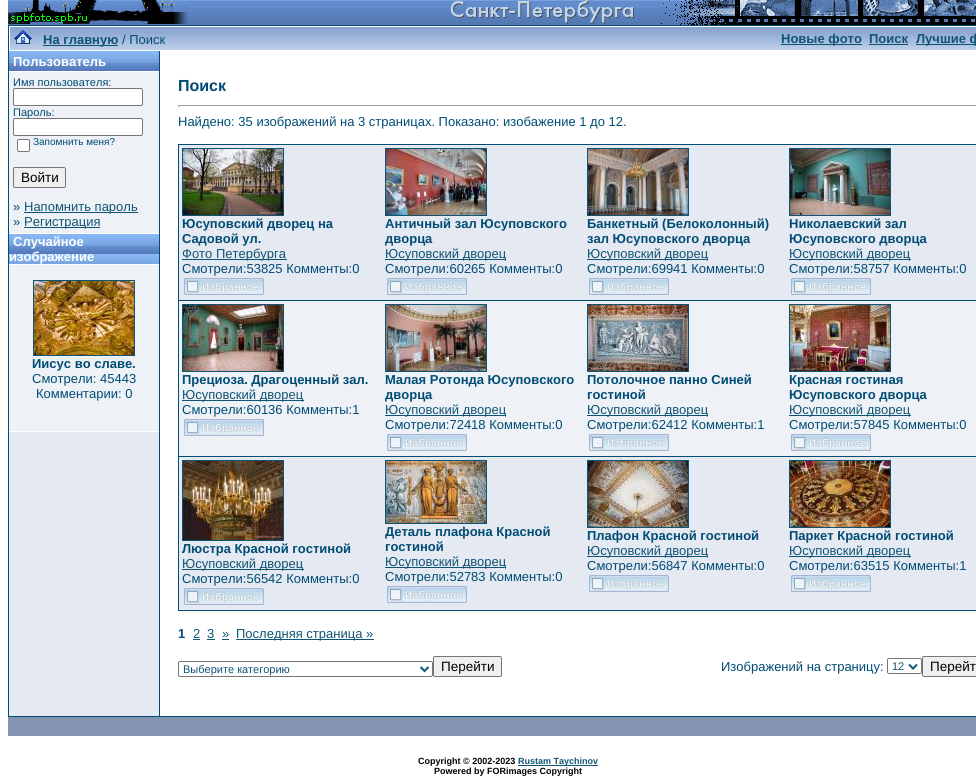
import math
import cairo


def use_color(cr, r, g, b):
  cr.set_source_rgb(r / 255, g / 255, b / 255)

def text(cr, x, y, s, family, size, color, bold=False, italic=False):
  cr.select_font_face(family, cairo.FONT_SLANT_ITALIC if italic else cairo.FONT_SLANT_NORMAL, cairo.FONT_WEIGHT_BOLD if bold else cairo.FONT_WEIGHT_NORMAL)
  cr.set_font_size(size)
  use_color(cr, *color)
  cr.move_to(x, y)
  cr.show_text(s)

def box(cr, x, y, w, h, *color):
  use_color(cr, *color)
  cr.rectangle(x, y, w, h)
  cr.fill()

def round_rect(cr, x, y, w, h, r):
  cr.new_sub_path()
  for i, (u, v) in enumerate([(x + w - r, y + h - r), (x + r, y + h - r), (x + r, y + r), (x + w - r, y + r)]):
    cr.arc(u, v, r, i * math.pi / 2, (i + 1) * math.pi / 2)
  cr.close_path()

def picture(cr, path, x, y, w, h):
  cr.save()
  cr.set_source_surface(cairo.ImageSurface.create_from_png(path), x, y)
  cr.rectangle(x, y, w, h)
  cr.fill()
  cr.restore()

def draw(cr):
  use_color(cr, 255, 255, 255)
  cr.paint()
  picture(cr, "img_01.png", 8, 0, 968, 25)
  picture(cr, "img_02.png", 8, 0, 180, 24)
  box(cr, 8, 25, 968, 692, 0, 76, 117)
  box(cr, 9, 26, 967, 690, 255, 255, 255)
  picture(cr, "img_03.png", 10, 27, 966, 23)
  picture(cr, "img_04.png", 14, 30, 18, 14)
  box(cr, 43, 45, 75, 1, 15, 84, 117)
  box(cr, 781, 44, 81, 1, 15, 84, 117)
  box(cr, 869, 44, 39, 1, 15, 84, 117)
  box(cr, 916, 44, 60, 1, 15, 84, 117)
  box(cr, 9, 432, 150, 284, 229, 233, 242)
  picture(cr, "img_05.png", 9, 51, 150, 20)
  box(cr, 9, 72, 150, 161, 238, 241, 246)
  use_color(cr, 255, 255, 255)
  round_rect(cr, 13.5, 88.5, 129, 17, 1.5)
  cr.fill_preserve()
  use_color(cr, 118, 118, 118)
  cr.set_line_width(1)
  cr.stroke()
  use_color(cr, 255, 255, 255)
  round_rect(cr, 17.5, 139.5, 12, 12, 1.5)
  cr.fill_preserve()
  use_color(cr, 118, 118, 118)
  cr.stroke()
  use_color(cr, 239, 239, 239)
  round_rect(cr, 13.5, 167.5, 52, 20, 1.5)
  cr.fill_preserve()
  use_color(cr, 118, 118, 118)
  cr.stroke()
  box(cr, 24, 212, 114, 1, 15, 84, 117)
  box(cr, 24, 227, 76, 1, 15, 84, 117)
  picture(cr, "img_06.png", 9, 234, 150, 30)
  box(cr, 9, 265, 150, 166, 238, 241, 246)
  cr.rectangle(33.5, 280.5, 101, 75)
  use_color(cr, 15, 84, 117)
  cr.stroke()
  picture(cr, "img_07.png", 34, 281, 100, 74)
  box(cr, 159, 51, 1, 665, 0, 76, 117)
  box(cr, 178, 105, 798, 1, 159, 159, 159)
  box(cr, 178, 105, 1, 2, 159, 159, 159)
  box(cr, 178, 144, 798, 467, 0, 76, 117)
  box(cr, 179, 145, 797, 155, 229, 233, 242)
  cr.rectangle(182.5, 148.5, 101, 67)
  use_color(cr, 15, 84, 117)
  cr.stroke()
  picture(cr, "img_08.png", 183, 149, 100, 66)
  box(cr, 182, 259, 105, 1, 15, 84, 117)
  picture(cr, "img_09.png", 184, 278, 80, 17)
  cr.rectangle(385.5, 148.5, 101, 67)
  cr.stroke()
  picture(cr, "img_10.png", 386, 149, 100, 66)
  box(cr, 385, 259, 121, 1, 15, 84, 117)
  picture(cr, "img_09.png", 387, 278, 80, 17)
  cr.rectangle(587.5, 148.5, 101, 67)
  cr.stroke()
  picture(cr, "img_11.png", 588, 149, 100, 66)
  box(cr, 587, 259, 121, 1, 15, 84, 117)
  picture(cr, "img_09.png", 589, 278, 80, 17)
  cr.rectangle(789.5, 148.5, 101, 67)
  cr.stroke()
  picture(cr, "img_12.png", 790, 149, 100, 66)
  box(cr, 789, 259, 122, 1, 15, 84, 117)
  picture(cr, "img_09.png", 791, 278, 80, 17)
  box(cr, 179, 301, 797, 155, 238, 241, 246)
  cr.rectangle(182.5, 304.5, 101, 67)
  use_color(cr, 15, 84, 117)
  cr.stroke()
  picture(cr, "img_13.png", 183, 305, 100, 66)
  box(cr, 182, 400, 122, 1, 15, 84, 117)
  picture(cr, "img_09.png", 184, 419, 80, 17)
  cr.rectangle(385.5, 304.5, 101, 67)
  cr.stroke()
  picture(cr, "img_14.png", 386, 305, 100, 66)
  box(cr, 385, 415, 121, 1, 15, 84, 117)
  picture(cr, "img_09.png", 387, 434, 80, 17)
  cr.rectangle(587.5, 304.5, 101, 67)
  cr.stroke()
  picture(cr, "img_15.png", 588, 305, 100, 66)
  box(cr, 587, 415, 121, 1, 15, 84, 117)
  picture(cr, "img_09.png", 589, 434, 80, 17)
  cr.rectangle(789.5, 304.5, 101, 67)
  cr.stroke()
  picture(cr, "img_16.png", 790, 305, 100, 66)
  box(cr, 789, 415, 122, 1, 15, 84, 117)
  picture(cr, "img_09.png", 791, 434, 80, 17)
  box(cr, 179, 457, 797, 153, 229, 233, 242)
  cr.rectangle(182.5, 460.5, 101, 80)
  use_color(cr, 15, 84, 117)
  cr.stroke()
  picture(cr, "img_17.png", 183, 461, 100, 79)
  box(cr, 182, 569, 122, 1, 15, 84, 117)
  picture(cr, "img_09.png", 184, 588, 80, 17)
  cr.rectangle(385.5, 460.5, 101, 63)
  cr.stroke()
  picture(cr, "img_18.png", 386, 461, 100, 62)
  box(cr, 385, 567, 121, 1, 15, 84, 117)
  picture(cr, "img_09.png", 387, 586, 80, 17)
  cr.rectangle(587.5, 460.5, 101, 67)
  cr.stroke()
  picture(cr, "img_19.png", 588, 461, 100, 66)
  box(cr, 587, 556, 121, 1, 15, 84, 117)
  picture(cr, "img_09.png", 589, 575, 80, 17)
  cr.rectangle(789.5, 460.5, 101, 67)
  cr.stroke()
  picture(cr, "img_20.png", 790, 461, 100, 66)
  box(cr, 789, 556, 122, 1, 15, 84, 117)
  picture(cr, "img_09.png", 791, 575, 80, 17)
  box(cr, 193, 639, 7, 1, 15, 84, 117)
  box(cr, 207, 639, 8, 1, 15, 84, 117)
  box(cr, 222, 639, 7, 1, 15, 84, 117)
  box(cr, 236, 639, 138, 1, 15, 84, 117)
  round_rect(cr, 178.5, 661.5, 254, 15, 1.5)
  use_color(cr, 118, 118, 118)
  cr.stroke()
  cr.new_path()
  cr.move_to(420.5, 667)
  cr.line_to(424.5, 671)
  cr.line_to(428.5, 667)
  use_color(cr, 15, 84, 117)
  cr.set_line_width(2)
  cr.stroke()
  use_color(cr, 239, 239, 239)
  round_rect(cr, 433.5, 656.5, 68, 20, 1.5)
  cr.fill_preserve()
  use_color(cr, 118, 118, 118)
  cr.set_line_width(1)
  cr.stroke()
  round_rect(cr, 887.5, 658.5, 34, 15, 1.5)
  cr.stroke()
  cr.new_path()
  cr.move_to(909, 664.5)
  cr.line_to(913, 668.5)
  cr.line_to(917, 664.5)
  use_color(cr, 15, 84, 117)
  cr.set_line_width(2)
  cr.stroke()
  use_color(cr, 239, 239, 239)
  round_rect(cr, 922.5, 656.5, 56, 20, 1.5)
  cr.fill_preserve()
  use_color(cr, 118, 118, 118)
  cr.set_line_width(1)
  cr.stroke()
  box(cr, 8, 717, 968, 19, 132, 147, 178)
  box(cr, 518, 765, 80, 1, 15, 84, 117)
  text(cr, 43, 44, "На главную", "Liberation Sans", 13, (15, 84, 117), bold=True)
  text(cr, 122, 44, "/ Поиск", "Liberation Sans", 13, (0, 76, 117))
  text(cr, 781, 43, "Новые фото", "Liberation Sans", 13, (15, 84, 117), bold=True)
  text(cr, 869, 43, "Поиск", "Liberation Sans", 13, (15, 84, 117), bold=True)
  text(cr, 916, 43, "Лучшие ф", "Liberation Sans", 13, (15, 84, 117), bold=True)
  text(cr, 13, 66, "Пользователь", "Liberation Sans", 13, (255, 255, 255), bold=True)
  text(cr, 13, 86, "Имя пользователя:", "Liberation Sans", 11, (0, 76, 117))
  text(cr, 13, 116, "Пароль:", "Liberation Sans", 11, (0, 76, 117))
  use_color(cr, 255, 255, 255)
  round_rect(cr, 13.5, 118.5, 129, 17, 1.5)
  cr.fill_preserve()
  use_color(cr, 118, 118, 118)
  cr.stroke()
  text(cr, 33, 145, "Запомнить меня?", "Liberation Sans", 10, (0, 76, 117))
  text(cr, 21, 182, "Войти", "Liberation Sans", 13.5, (0, 0, 0))
  text(cr, 13, 211, "»", "Liberation Sans", 13, (0, 76, 117))
  text(cr, 24, 211, "Напомнить пароль", "Liberation Sans", 13, (15, 84, 117))
  text(cr, 13, 226, "»", "Liberation Sans", 13, (0, 76, 117))
  text(cr, 24, 226, "Регистрация", "Liberation Sans", 13, (15, 84, 117))
  text(cr, 13, 246, "Случайное", "Liberation Sans", 13, (255, 255, 255), bold=True)
  text(cr, 9, 261, "изображение", "Liberation Sans", 13, (255, 255, 255), bold=True)
  text(cr, 32, 368, "Иисус во славе.", "Liberation Sans", 13, (0, 76, 117), bold=True)
  text(cr, 32, 383, "Смотрели: 45443", "Liberation Sans", 13, (0, 76, 117))
  text(cr, 36, 398, "Комментарии: 0", "Liberation Sans", 13, (0, 76, 117))
  text(cr, 178, 91, "Поиск", "Liberation Sans", 16, (0, 76, 117), bold=True)
  text(cr, 178, 126, "Найдено: 35 изображений на 3 страницах. Показано: изобажение 1 до 12.", "Liberation Sans", 13, (0, 76, 117))
  text(cr, 182, 228, "Юсуповский дворец на", "Liberation Sans", 13, (0, 76, 117), bold=True)
  text(cr, 182, 243, "Садовой ул.", "Liberation Sans", 13, (0, 76, 117), bold=True)
  text(cr, 182, 258, "Фото Петербурга", "Liberation Sans", 13, (15, 84, 117))
  text(cr, 182, 273, "Смотрели:53825 Комменты:0", "Liberation Sans", 13, (0, 76, 117))
  text(cr, 385, 228, "Античный зал Юсуповского", "Liberation Sans", 13, (0, 76, 117), bold=True)
  text(cr, 385, 243, "дворца", "Liberation Sans", 13, (0, 76, 117), bold=True)
  text(cr, 385, 258, "Юсуповский дворец", "Liberation Sans", 13, (15, 84, 117))
  text(cr, 385, 273, "Смотрели:60265 Комменты:0", "Liberation Sans", 13, (0, 76, 117))
  text(cr, 587, 228, "Банкетный (Белоколонный)", "Liberation Sans", 13, (0, 76, 117), bold=True)
  text(cr, 587, 243, "зал Юсуповского дворца", "Liberation Sans", 13, (0, 76, 117), bold=True)
  text(cr, 587, 258, "Юсуповский дворец", "Liberation Sans", 13, (15, 84, 117))
  text(cr, 587, 273, "Смотрели:69941 Комменты:0", "Liberation Sans", 13, (0, 76, 117))
  text(cr, 789, 228, "Николаевский зал", "Liberation Sans", 13, (0, 76, 117), bold=True)
  text(cr, 789, 243, "Юсуповского дворца", "Liberation Sans", 13, (0, 76, 117), bold=True)
  text(cr, 789, 258, "Юсуповский дворец", "Liberation Sans", 13, (15, 84, 117))
  text(cr, 789, 273, "Смотрели:58757 Комменты:0", "Liberation Sans", 13, (0, 76, 117))
  text(cr, 182, 384, "Прециоза. Драгоценный зал.", "Liberation Sans", 13, (0, 76, 117), bold=True)
  text(cr, 182, 399, "Юсуповский дворец", "Liberation Sans", 13, (15, 84, 117))
  text(cr, 182, 414, "Смотрели:60136 Комменты:1", "Liberation Sans", 13, (0, 76, 117))
  text(cr, 385, 384, "Малая Ротонда Юсуповского", "Liberation Sans", 13, (0, 76, 117), bold=True)
  text(cr, 385, 399, "дворца", "Liberation Sans", 13, (0, 76, 117), bold=True)
  text(cr, 385, 414, "Юсуповский дворец", "Liberation Sans", 13, (15, 84, 117))
  text(cr, 385, 429, "Смотрели:72418 Комменты:0", "Liberation Sans", 13, (0, 76, 117))
  text(cr, 587, 384, "Потолочное панно Синей", "Liberation Sans", 13, (0, 76, 117), bold=True)
  text(cr, 587, 399, "гостиной", "Liberation Sans", 13, (0, 76, 117), bold=True)
  text(cr, 587, 414, "Юсуповский дворец", "Liberation Sans", 13, (15, 84, 117))
  text(cr, 587, 429, "Смотрели:62412 Комменты:1", "Liberation Sans", 13, (0, 76, 117))
  text(cr, 789, 384, "Красная гостиная", "Liberation Sans", 13, (0, 76, 117), bold=True)
  text(cr, 789, 399, "Юсуповского дворца", "Liberation Sans", 13, (0, 76, 117), bold=True)
  text(cr, 789, 414, "Юсуповский дворец", "Liberation Sans", 13, (15, 84, 117))
  text(cr, 789, 429, "Смотрели:57845 Комменты:0", "Liberation Sans", 13, (0, 76, 117))
  text(cr, 182, 553, "Люстра Красной гостиной", "Liberation Sans", 13, (0, 76, 117), bold=True)
  text(cr, 182, 568, "Юсуповский дворец", "Liberation Sans", 13, (15, 84, 117))
  text(cr, 182, 583, "Смотрели:56542 Комменты:0", "Liberation Sans", 13, (0, 76, 117))
  text(cr, 385, 536, "Деталь плафона Красной", "Liberation Sans", 13, (0, 76, 117), bold=True)
  text(cr, 385, 551, "гостиной", "Liberation Sans", 13, (0, 76, 117), bold=True)
  text(cr, 385, 566, "Юсуповский дворец", "Liberation Sans", 13, (15, 84, 117))
  text(cr, 385, 581, "Смотрели:52783 Комменты:0", "Liberation Sans", 13, (0, 76, 117))
  text(cr, 587, 540, "Плафон Красной гостиной", "Liberation Sans", 13, (0, 76, 117), bold=True)
  text(cr, 587, 555, "Юсуповский дворец", "Liberation Sans", 13, (15, 84, 117))
  text(cr, 587, 570, "Смотрели:56847 Комменты:0", "Liberation Sans", 13, (0, 76, 117))
  text(cr, 789, 540, "Паркет Красной гостиной", "Liberation Sans", 13, (0, 76, 117), bold=True)
  text(cr, 789, 555, "Юсуповский дворец", "Liberation Sans", 13, (15, 84, 117))
  text(cr, 789, 570, "Смотрели:63515 Комменты:1", "Liberation Sans", 13, (0, 76, 117))
  text(cr, 178, 638, "1", "Liberation Sans", 13, (0, 76, 117), bold=True)
  text(cr, 193, 638, "2", "Liberation Sans", 13, (15, 84, 117))
  text(cr, 207, 638, "3", "Liberation Sans", 13, (15, 84, 117))
  text(cr, 222, 638, "»", "Liberation Sans", 13, (15, 84, 117))
  text(cr, 236, 638, "Последняя страница »", "Liberation Sans", 13, (15, 84, 117))
  text(cr, 183, 673, "Выберите категорию", "Liberation Sans", 11, (15, 84, 117))
  text(cr, 441, 671, "Перейти", "Liberation Sans", 13.5, (0, 0, 0))
  text(cr, 721, 671, "Изображений на страницу:", "Liberation Sans", 13, (0, 76, 117))
  text(cr, 892, 670, "12", "Liberation Sans", 11, (15, 84, 117))
  text(cr, 930, 671, "Перейт", "Liberation Sans", 13.5, (0, 0, 0))
  text(cr, 418, 764, "Copyright © 2002-2023", "Liberation Sans", 9, (0, 0, 0), bold=True)
  text(cr, 518, 764, "Rustam Taychinov", "Liberation Sans", 9, (15, 84, 117), bold=True)
  text(cr, 434, 774, "Powered by FORimages Copyright", "Liberation Sans", 9, (0, 0, 0), bold=True)


surface = cairo.ImageSurface(cairo.FORMAT_RGB24, 976, 781)
cr = cairo.Context(surface)
options = cairo.FontOptions()
options.set_hint_metrics(cairo.HINT_METRICS_OFF)
options.set_hint_style(cairo.HINT_STYLE_NONE)
cr.set_font_options(options)
cr.set_miter_limit(4)
draw(cr)
surface.write_to_png("out.png")
